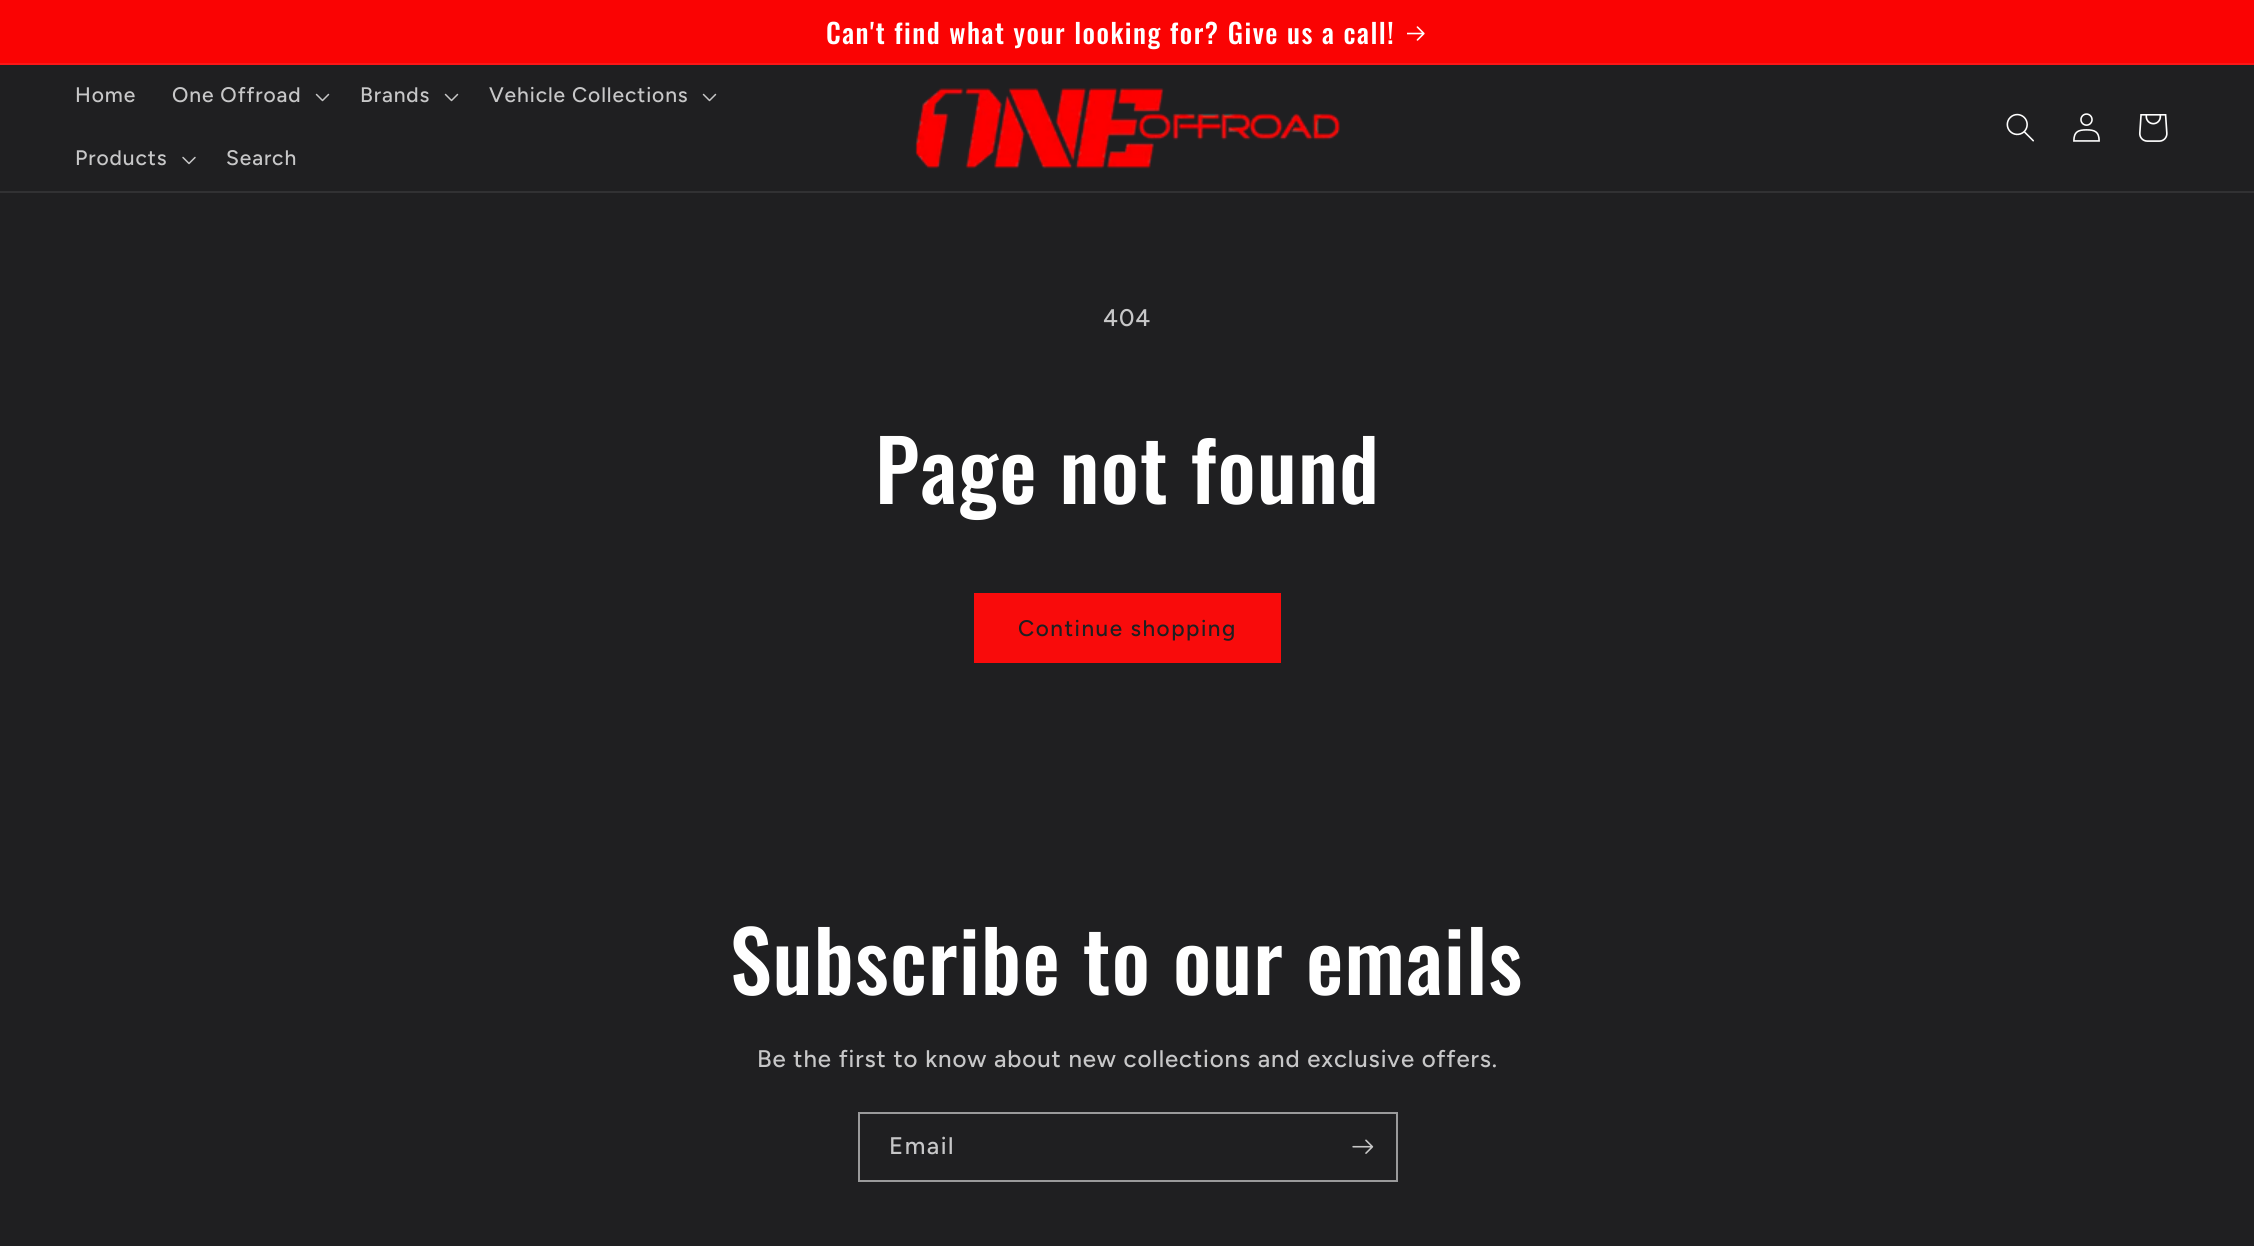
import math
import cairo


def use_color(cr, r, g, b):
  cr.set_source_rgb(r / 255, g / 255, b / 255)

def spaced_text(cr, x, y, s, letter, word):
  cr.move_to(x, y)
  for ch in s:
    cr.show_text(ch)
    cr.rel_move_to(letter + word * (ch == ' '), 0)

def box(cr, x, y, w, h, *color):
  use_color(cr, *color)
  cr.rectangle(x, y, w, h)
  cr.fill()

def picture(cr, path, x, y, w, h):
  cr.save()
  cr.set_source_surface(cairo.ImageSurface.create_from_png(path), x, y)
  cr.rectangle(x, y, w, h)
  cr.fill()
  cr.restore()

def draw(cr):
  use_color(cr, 31, 31, 33)
  cr.paint()
  box(cr, 0, 0, 2254, 63, 250, 3, 3)
  box(cr, 0, 63, 2254, 2, 250, 23, 23)
  picture(cr, "img_01.png", 1407, 26, 18, 15)
  box(cr, 0, 191, 2254, 2, 49, 49, 51)
  picture(cr, "img_02.png", 315, 93, 15, 9)
  picture(cr, "img_02.png", 444, 93, 15, 9)
  picture(cr, "img_02.png", 702, 93, 15, 9)
  picture(cr, "img_03.png", 182, 156, 14, 9)
  picture(cr, "img_04.png", 915, 88, 425, 81)
  picture(cr, "img_05.png", 2006, 113, 28, 29)
  picture(cr, "img_06.png", 2073, 113, 27, 29)
  picture(cr, "img_07.png", 2139, 114, 29, 28)
  box(cr, 974, 593, 307, 70, 249, 11, 11)
  cr.rectangle(859, 1113, 538, 68)
  use_color(cr, 154, 154, 155)
  cr.stroke()
  picture(cr, "img_08.png", 1352, 1139, 22, 15)
  cr.select_font_face("Oswald Medium")
  cr.set_font_size(27.3)
  use_color(cr, 255, 255, 255)
  spaced_text(cr, 826, 44, "Can't find what your looking for? Give us a call!", 1.5, 0)
  cr.select_font_face("Figtree Medium")
  cr.set_font_size(21)
  use_color(cr, 199, 199, 200)
  spaced_text(cr, 75, 102, "Home", 0.9, 0)
  spaced_text(cr, 172, 102, "One Offroad", 0.9, 0)
  spaced_text(cr, 360, 102, "Brands", 0.9, 0)
  spaced_text(cr, 489, 102, "Vehicle Collections", 0.9, 0)
  spaced_text(cr, 75, 165, "Products", 0.9, 0)
  spaced_text(cr, 226, 165, "Search", 0.9, 0)
  cr.set_font_size(24)
  spaced_text(cr, 1103, 326, "404", 0.9, 0)
  cr.select_font_face("Oswald Medium")
  cr.set_font_size(84)
  use_color(cr, 255, 255, 255)
  spaced_text(cr, 875, 504, "Page not found", 1.25, 0)
  cr.select_font_face("Figtree Medium")
  cr.set_font_size(22.5)
  use_color(cr, 31, 31, 33)
  spaced_text(cr, 1018, 636, "Continue shopping", 1.5, 0)
  cr.select_font_face("Oswald Medium")
  cr.set_font_size(84)
  use_color(cr, 255, 255, 255)
  spaced_text(cr, 730, 995, "Subscribe to our emails", 1.25, 0)
  cr.select_font_face("Figtree Medium")
  cr.set_font_size(24)
  use_color(cr, 199, 199, 200)
  spaced_text(cr, 757, 1067, "Be the first to know about new collections and exclusive offers.", 0.9, 0)
  spaced_text(cr, 889, 1154, "Email", 1.5, 0)


surface = cairo.ImageSurface(cairo.FORMAT_RGB24, 2254, 1246)
cr = cairo.Context(surface)
options = cairo.FontOptions()
options.set_hint_metrics(cairo.HINT_METRICS_OFF)
options.set_hint_style(cairo.HINT_STYLE_NONE)
cr.set_font_options(options)
cr.set_miter_limit(4)
draw(cr)
surface.write_to_png("out.png")
